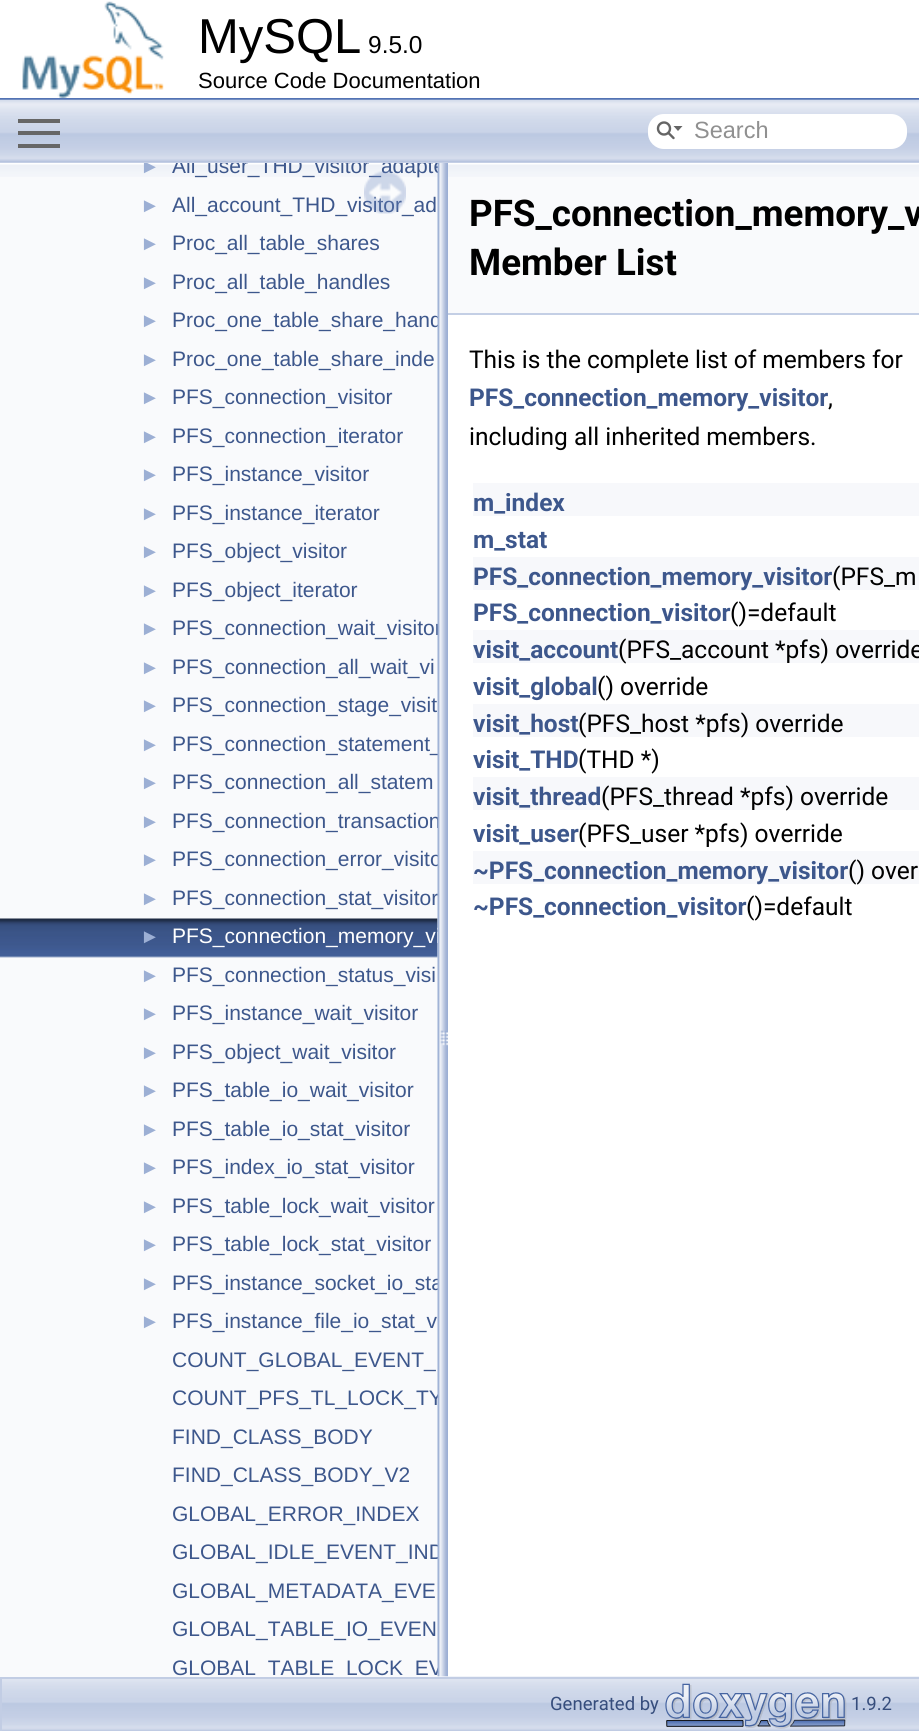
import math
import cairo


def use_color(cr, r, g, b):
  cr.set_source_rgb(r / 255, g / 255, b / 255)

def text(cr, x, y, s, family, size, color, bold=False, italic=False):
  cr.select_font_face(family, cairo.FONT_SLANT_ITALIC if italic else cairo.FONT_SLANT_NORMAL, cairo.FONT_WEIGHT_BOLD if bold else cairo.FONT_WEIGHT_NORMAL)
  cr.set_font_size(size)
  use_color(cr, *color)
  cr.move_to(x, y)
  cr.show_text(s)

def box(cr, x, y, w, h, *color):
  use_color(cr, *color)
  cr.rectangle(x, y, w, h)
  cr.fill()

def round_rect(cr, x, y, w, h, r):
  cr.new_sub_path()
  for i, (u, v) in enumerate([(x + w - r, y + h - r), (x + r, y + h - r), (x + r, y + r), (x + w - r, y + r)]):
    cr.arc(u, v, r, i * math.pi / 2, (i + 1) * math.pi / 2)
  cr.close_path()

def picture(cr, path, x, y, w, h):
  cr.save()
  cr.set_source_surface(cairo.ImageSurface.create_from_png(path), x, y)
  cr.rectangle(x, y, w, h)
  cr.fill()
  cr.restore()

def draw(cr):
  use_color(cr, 255, 255, 255)
  cr.paint()
  box(cr, 0, 98, 919, 2, 83, 115, 180)
  picture(cr, "img_01.png", 22, 1, 142, 97)
  picture(cr, "img_08.png", 2, 1676, 917, 55)
  box(cr, 0, 163, 438, 1514, 249, 250, 252)
  picture(cr, "img_03.png", 0, 163, 438, 14)
  picture(cr, "img_04.png", 0, 918, 438, 40)
  box(cr, 448, 177, 471, 136, 249, 250, 252)
  picture(cr, "img_07.png", 448, 163, 471, 14)
  box(cr, 448, 313, 471, 2, 196, 207, 229)
  box(cr, 473, 483, 446, 33, 247, 248, 251)
  box(cr, 473, 557, 446, 33, 247, 248, 251)
  box(cr, 473, 630, 446, 33, 247, 248, 251)
  box(cr, 473, 704, 446, 33, 247, 248, 251)
  box(cr, 473, 777, 446, 33, 247, 248, 251)
  box(cr, 473, 851, 446, 33, 247, 248, 251)
  cr.rectangle(1, 1678, 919, 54)
  use_color(cr, 194, 205, 228)
  cr.stroke()
  picture(cr, "img_09.png", 665, 1683, 182, 46)
  text(cr, 198, 53, "MySQL", "Liberation Sans", 49, (0, 0, 0))
  text(cr, 368, 53, "9.5.0", "Liberation Sans", 24.5, (0, 0, 0))
  text(cr, 198, 88, "Source Code Documentation", "Liberation Sans", 22, (0, 0, 0))
  cr.save()
  cr.rectangle(0, 163, 438, 1514)
  cr.clip()
  text(cr, 140, 173, "►", "Liberation Sans", 20, (156, 175, 212))
  text(cr, 172, 173, "All_user_THD_visitor_adapte", "Liberation Sans", 21, (61, 87, 140))
  cr.restore()
  text(cr, 140, 212, "►", "Liberation Sans", 20, (156, 175, 212))
  text(cr, 172, 212, "All_account_THD_visitor_ad", "Liberation Sans", 21, (61, 87, 140))
  text(cr, 140, 250, "►", "Liberation Sans", 20, (156, 175, 212))
  text(cr, 172, 250, "Proc_all_table_shares", "Liberation Sans", 21, (61, 87, 140))
  text(cr, 140, 289, "►", "Liberation Sans", 20, (156, 175, 212))
  text(cr, 172, 289, "Proc_all_table_handles", "Liberation Sans", 21, (61, 87, 140))
  text(cr, 140, 327, "►", "Liberation Sans", 20, (156, 175, 212))
  text(cr, 172, 327, "Proc_one_table_share_hand", "Liberation Sans", 21, (61, 87, 140))
  text(cr, 140, 366, "►", "Liberation Sans", 20, (156, 175, 212))
  text(cr, 172, 366, "Proc_one_table_share_inde", "Liberation Sans", 21, (61, 87, 140))
  text(cr, 140, 404, "►", "Liberation Sans", 20, (156, 175, 212))
  text(cr, 172, 404, "PFS_connection_visitor", "Liberation Sans", 21, (61, 87, 140))
  text(cr, 140, 443, "►", "Liberation Sans", 20, (156, 175, 212))
  text(cr, 172, 443, "PFS_connection_iterator", "Liberation Sans", 21, (61, 87, 140))
  text(cr, 140, 481, "►", "Liberation Sans", 20, (156, 175, 212))
  text(cr, 172, 481, "PFS_instance_visitor", "Liberation Sans", 21, (61, 87, 140))
  text(cr, 140, 520, "►", "Liberation Sans", 20, (156, 175, 212))
  text(cr, 172, 520, "PFS_instance_iterator", "Liberation Sans", 21, (61, 87, 140))
  text(cr, 140, 558, "►", "Liberation Sans", 20, (156, 175, 212))
  text(cr, 172, 558, "PFS_object_visitor", "Liberation Sans", 21, (61, 87, 140))
  text(cr, 140, 597, "►", "Liberation Sans", 20, (156, 175, 212))
  text(cr, 172, 597, "PFS_object_iterator", "Liberation Sans", 21, (61, 87, 140))
  text(cr, 140, 635, "►", "Liberation Sans", 20, (156, 175, 212))
  text(cr, 172, 635, "PFS_connection_wait_visitor", "Liberation Sans", 21, (61, 87, 140))
  text(cr, 140, 674, "►", "Liberation Sans", 20, (156, 175, 212))
  text(cr, 172, 674, "PFS_connection_all_wait_vi", "Liberation Sans", 21, (61, 87, 140))
  text(cr, 140, 712, "►", "Liberation Sans", 20, (156, 175, 212))
  text(cr, 172, 712, "PFS_connection_stage_visit", "Liberation Sans", 21, (61, 87, 140))
  text(cr, 140, 751, "►", "Liberation Sans", 20, (156, 175, 212))
  text(cr, 172, 751, "PFS_connection_statement_", "Liberation Sans", 21, (61, 87, 140))
  text(cr, 140, 789, "►", "Liberation Sans", 20, (156, 175, 212))
  text(cr, 172, 789, "PFS_connection_all_statem", "Liberation Sans", 21, (61, 87, 140))
  text(cr, 140, 828, "►", "Liberation Sans", 20, (156, 175, 212))
  text(cr, 172, 828, "PFS_connection_transaction", "Liberation Sans", 21, (61, 87, 140))
  text(cr, 140, 866, "►", "Liberation Sans", 20, (156, 175, 212))
  text(cr, 172, 866, "PFS_connection_error_visito", "Liberation Sans", 21, (61, 87, 140))
  text(cr, 140, 905, "►", "Liberation Sans", 20, (156, 175, 212))
  text(cr, 172, 905, "PFS_connection_stat_visitor", "Liberation Sans", 21, (61, 87, 140))
  text(cr, 140, 943, "►", "Liberation Sans", 20, (156, 175, 212))
  text(cr, 172, 943, "PFS_connection_memory_vi", "Liberation Sans", 21, (255, 255, 255))
  text(cr, 140, 982, "►", "Liberation Sans", 20, (156, 175, 212))
  text(cr, 172, 982, "PFS_connection_status_visi", "Liberation Sans", 21, (61, 87, 140))
  text(cr, 140, 1020, "►", "Liberation Sans", 20, (156, 175, 212))
  text(cr, 172, 1020, "PFS_instance_wait_visitor", "Liberation Sans", 21, (61, 87, 140))
  text(cr, 140, 1059, "►", "Liberation Sans", 20, (156, 175, 212))
  text(cr, 172, 1059, "PFS_object_wait_visitor", "Liberation Sans", 21, (61, 87, 140))
  text(cr, 140, 1097, "►", "Liberation Sans", 20, (156, 175, 212))
  text(cr, 172, 1097, "PFS_table_io_wait_visitor", "Liberation Sans", 21, (61, 87, 140))
  text(cr, 140, 1136, "►", "Liberation Sans", 20, (156, 175, 212))
  text(cr, 172, 1136, "PFS_table_io_stat_visitor", "Liberation Sans", 21, (61, 87, 140))
  text(cr, 140, 1174, "►", "Liberation Sans", 20, (156, 175, 212))
  text(cr, 172, 1174, "PFS_index_io_stat_visitor", "Liberation Sans", 21, (61, 87, 140))
  text(cr, 140, 1213, "►", "Liberation Sans", 20, (156, 175, 212))
  text(cr, 172, 1213, "PFS_table_lock_wait_visitor", "Liberation Sans", 21, (61, 87, 140))
  text(cr, 140, 1251, "►", "Liberation Sans", 20, (156, 175, 212))
  text(cr, 172, 1251, "PFS_table_lock_stat_visitor", "Liberation Sans", 21, (61, 87, 140))
  text(cr, 140, 1290, "►", "Liberation Sans", 20, (156, 175, 212))
  text(cr, 172, 1290, "PFS_instance_socket_io_sta", "Liberation Sans", 21, (61, 87, 140))
  text(cr, 140, 1328, "►", "Liberation Sans", 20, (156, 175, 212))
  text(cr, 172, 1328, "PFS_instance_file_io_stat_v", "Liberation Sans", 21, (61, 87, 140))
  text(cr, 172, 1367, "COUNT_GLOBAL_EVENT_", "Liberation Sans", 21, (61, 87, 140))
  text(cr, 172, 1405, "COUNT_PFS_TL_LOCK_TY", "Liberation Sans", 21, (61, 87, 140))
  text(cr, 172, 1444, "FIND_CLASS_BODY", "Liberation Sans", 21, (61, 87, 140))
  text(cr, 172, 1482, "FIND_CLASS_BODY_V2", "Liberation Sans", 21, (61, 87, 140))
  text(cr, 172, 1521, "GLOBAL_ERROR_INDEX", "Liberation Sans", 21, (61, 87, 140))
  text(cr, 172, 1559, "GLOBAL_IDLE_EVENT_IND", "Liberation Sans", 21, (61, 87, 140))
  text(cr, 172, 1598, "GLOBAL_METADATA_EVE", "Liberation Sans", 21, (61, 87, 140))
  text(cr, 172, 1636, "GLOBAL_TABLE_IO_EVEN", "Liberation Sans", 21, (61, 87, 140))
  cr.save()
  cr.rectangle(0, 163, 438, 1514)
  cr.clip()
  text(cr, 172, 1675, "GLOBAL_TABLE_LOCK_EV", "Liberation Sans", 21, (61, 87, 140))
  cr.restore()
  picture(cr, "img_05.png", 364, 171, 42, 43)
  picture(cr, "img_06.png", 437, 162, 11, 1515)
  picture(cr, "img_02.png", 0, 99, 919, 64)
  use_color(cr, 255, 255, 255)
  round_rect(cr, 648, 114, 259, 35, 16)
  cr.fill()
  text(cr, 694, 138, "Search", "Liberation Sans", 23.5, (144, 144, 144))
  cr.new_path()
  cr.arc(664, 128.5, 6, 0, 2 * math.pi)
  use_color(cr, 101, 101, 101)
  cr.set_line_width(2.4)
  cr.stroke()
  cr.new_path()
  cr.move_to(668.5, 133)
  cr.line_to(673.5, 138)
  cr.set_line_cap(cairo.LINE_CAP_ROUND)
  cr.stroke()
  cr.new_path()
  cr.move_to(673.5, 126)
  cr.line_to(678, 131)
  cr.line_to(682.5, 126)
  cr.close_path()
  cr.fill()
  box(cr, 18, 144, 42, 4, 102, 102, 102)
  box(cr, 18, 119, 42, 4, 102, 102, 102)
  box(cr, 18, 131, 42, 4, 102, 102, 102)
  text(cr, 469, 226, "PFS_connection_memory_v", "Roboto", 36.75, (0, 0, 0), bold=True)
  text(cr, 469, 275, "Member List", "Roboto", 36.75, (0, 0, 0), bold=True)
  text(cr, 469, 368, "This is the complete list of members for", "Roboto", 24.5, (0, 0, 0))
  text(cr, 469, 406, "PFS_connection_memory_visitor", "Roboto", 24.5, (61, 87, 140), bold=True)
  text(cr, 828, 406, ",", "Roboto", 24.5, (0, 0, 0))
  text(cr, 469, 445, "including all inherited members.", "Roboto", 24.5, (0, 0, 0))
  text(cr, 473, 511, "m_index", "Roboto", 24.5, (61, 87, 140), bold=True)
  text(cr, 473, 548, "m_stat", "Roboto", 24.5, (61, 87, 140), bold=True)
  text(cr, 473, 585, "PFS_connection_memory_visitor", "Roboto", 24.5, (61, 87, 140), bold=True)
  text(cr, 832, 585, "(PFS_m", "Roboto", 24.5, (0, 0, 0))
  text(cr, 473, 621, "PFS_connection_visitor", "Roboto", 24.5, (61, 87, 140), bold=True)
  text(cr, 730, 621, "()=default", "Roboto", 24.5, (0, 0, 0))
  text(cr, 473, 658, "visit_account", "Roboto", 24.5, (61, 87, 140), bold=True)
  text(cr, 618, 658, "(PFS_account *pfs) override", "Roboto", 24.5, (0, 0, 0))
  text(cr, 473, 695, "visit_global", "Roboto", 24.5, (61, 87, 140), bold=True)
  text(cr, 597, 695, "() override", "Roboto", 24.5, (0, 0, 0))
  text(cr, 473, 732, "visit_host", "Roboto", 24.5, (61, 87, 140), bold=True)
  text(cr, 578, 732, "(PFS_host *pfs) override", "Roboto", 24.5, (0, 0, 0))
  text(cr, 473, 768, "visit_THD", "Roboto", 24.5, (61, 87, 140), bold=True)
  text(cr, 578, 768, "(THD *)", "Roboto", 24.5, (0, 0, 0))
  text(cr, 473, 805, "visit_thread", "Roboto", 24.5, (61, 87, 140), bold=True)
  text(cr, 601, 805, "(PFS_thread *pfs) override", "Roboto", 24.5, (0, 0, 0))
  text(cr, 473, 842, "visit_user", "Roboto", 24.5, (61, 87, 140), bold=True)
  text(cr, 578, 842, "(PFS_user *pfs) override", "Roboto", 24.5, (0, 0, 0))
  text(cr, 473, 879, "~PFS_connection_memory_visitor", "Roboto", 24.5, (61, 87, 140), bold=True)
  text(cr, 848, 879, "() over", "Roboto", 24.5, (0, 0, 0))
  text(cr, 473, 915, "~PFS_connection_visitor", "Roboto", 24.5, (61, 87, 140), bold=True)
  text(cr, 746, 915, "()=default", "Roboto", 24.5, (0, 0, 0))
  text(cr, 550, 1710, "Generated by", "Roboto", 18.5, (54, 77, 124))
  text(cr, 851, 1710, "1.9.2", "Roboto", 18.5, (54, 77, 124))


surface = cairo.ImageSurface(cairo.FORMAT_RGB24, 919, 1731)
cr = cairo.Context(surface)
options = cairo.FontOptions()
options.set_hint_metrics(cairo.HINT_METRICS_OFF)
options.set_hint_style(cairo.HINT_STYLE_NONE)
cr.set_font_options(options)
cr.set_miter_limit(4)
draw(cr)
surface.write_to_png("out.png")
